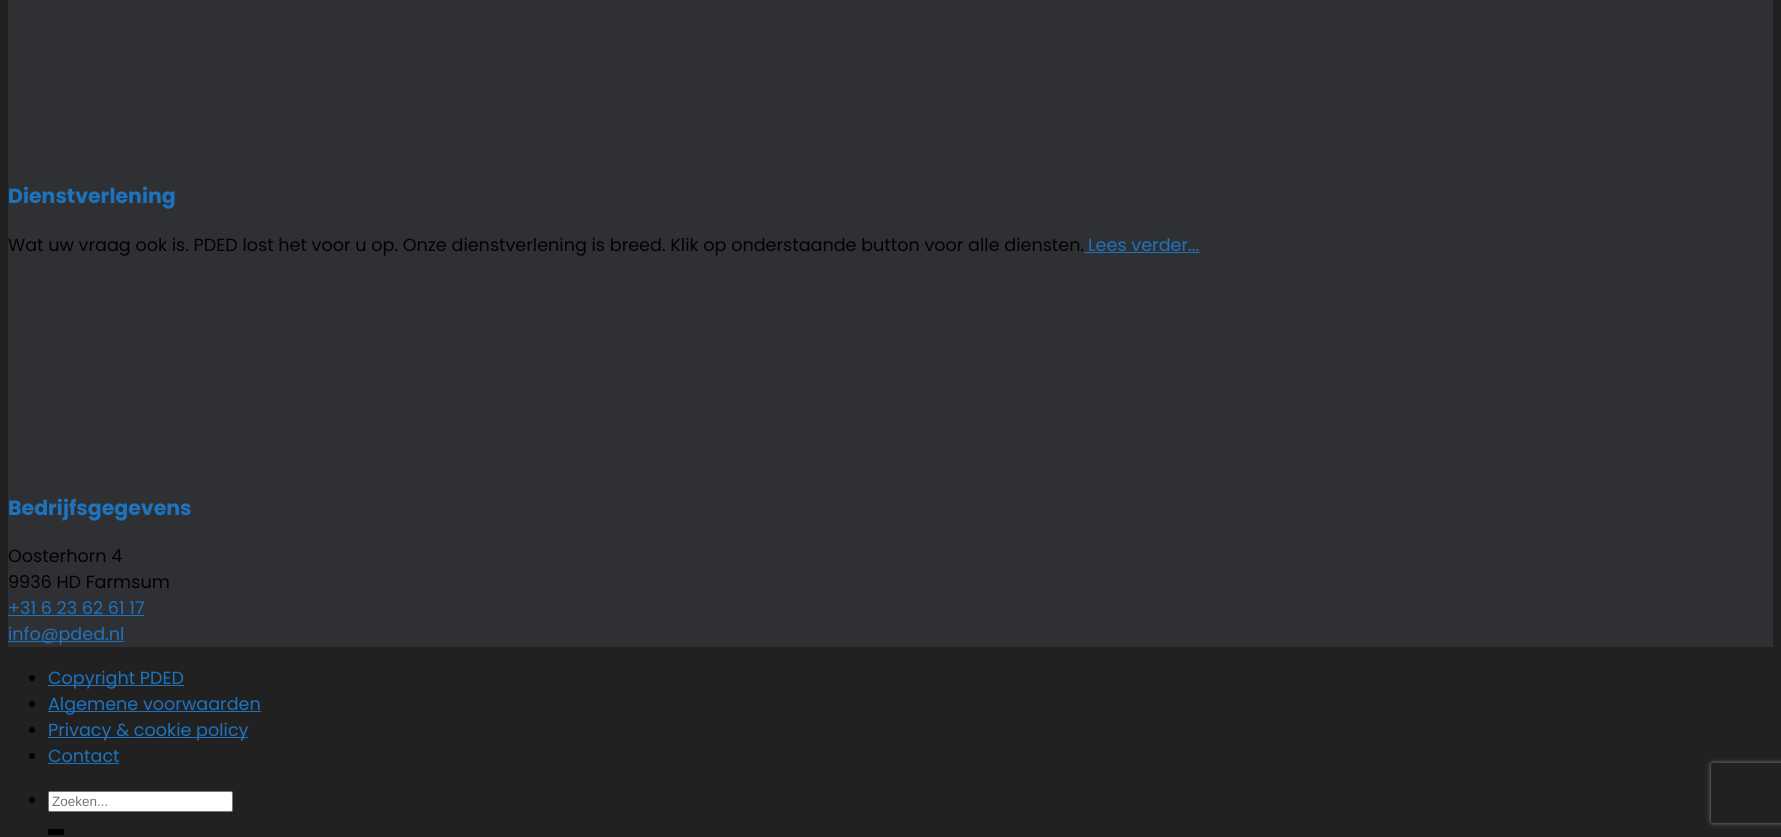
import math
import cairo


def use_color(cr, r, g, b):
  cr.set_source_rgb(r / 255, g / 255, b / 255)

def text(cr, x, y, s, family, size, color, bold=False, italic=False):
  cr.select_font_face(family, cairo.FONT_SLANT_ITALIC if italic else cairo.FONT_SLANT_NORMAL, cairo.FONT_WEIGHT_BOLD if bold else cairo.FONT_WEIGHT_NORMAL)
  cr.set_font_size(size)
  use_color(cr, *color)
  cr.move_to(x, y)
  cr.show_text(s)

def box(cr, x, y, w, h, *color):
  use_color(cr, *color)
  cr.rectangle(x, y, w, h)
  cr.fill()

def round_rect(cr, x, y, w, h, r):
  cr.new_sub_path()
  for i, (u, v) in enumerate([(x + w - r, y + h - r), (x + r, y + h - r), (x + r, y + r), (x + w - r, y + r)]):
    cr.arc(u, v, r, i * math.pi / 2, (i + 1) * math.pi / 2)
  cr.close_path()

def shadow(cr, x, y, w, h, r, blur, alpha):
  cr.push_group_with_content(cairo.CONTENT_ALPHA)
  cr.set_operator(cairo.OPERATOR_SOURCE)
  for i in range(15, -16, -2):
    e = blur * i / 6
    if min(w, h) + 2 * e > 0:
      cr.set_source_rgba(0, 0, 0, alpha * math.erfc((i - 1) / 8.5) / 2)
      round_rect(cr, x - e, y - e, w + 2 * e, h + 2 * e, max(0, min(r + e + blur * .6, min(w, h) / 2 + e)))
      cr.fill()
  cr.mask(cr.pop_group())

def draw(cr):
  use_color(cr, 33, 33, 33)
  cr.paint()
  box(cr, 8, 0, 1765, 647, 47, 48, 51)
  box(cr, 1084, 252, 116, 1, 30, 115, 190)
  box(cr, 8, 615, 136, 1, 30, 115, 190)
  box(cr, 8, 641, 116, 1, 30, 115, 190)
  use_color(cr, 2, 2, 2)
  cr.arc(32, 678, 3, 0, 2 * math.pi)
  cr.fill()
  box(cr, 48, 685, 136, 1, 30, 115, 190)
  use_color(cr, 2, 2, 2)
  cr.arc(32, 704, 3, 0, 2 * math.pi)
  cr.fill()
  box(cr, 48, 711, 213, 1, 30, 115, 190)
  use_color(cr, 2, 2, 2)
  cr.arc(32, 730, 3, 0, 2 * math.pi)
  cr.fill()
  box(cr, 48, 737, 200, 1, 30, 115, 190)
  use_color(cr, 2, 2, 2)
  cr.arc(32, 756, 3, 0, 2 * math.pi)
  cr.fill()
  box(cr, 48, 763, 71, 1, 30, 115, 190)
  use_color(cr, 2, 2, 2)
  cr.arc(32, 800, 3, 0, 2 * math.pi)
  cr.fill()
  use_color(cr, 255, 255, 255)
  round_rect(cr, 48.5, 791.5, 184, 20, 1.5)
  cr.fill_preserve()
  use_color(cr, 118, 118, 118)
  cr.set_line_width(1)
  cr.stroke()
  use_color(cr, 2, 2, 2)
  cr.rectangle(49, 830, 14, 4)
  cr.fill_preserve()
  use_color(cr, 0, 0, 0)
  cr.set_line_width(2)
  cr.stroke()
  cr.save()
  cr.set_fill_rule(cairo.FILL_RULE_EVEN_ODD)
  cr.new_path()
  cr.move_to(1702, 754)
  cr.line_to(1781, 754)
  cr.line_to(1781, 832)
  cr.line_to(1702, 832)
  cr.close_path()
  cr.move_to(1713, 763)
  cr.line_to(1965, 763)
  cr.curve_to(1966, 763, 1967, 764, 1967, 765)
  cr.line_to(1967, 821)
  cr.curve_to(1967, 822, 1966, 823, 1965, 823)
  cr.line_to(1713, 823)
  cr.curve_to(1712, 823, 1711, 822, 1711, 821)
  cr.line_to(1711, 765)
  cr.curve_to(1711, 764, 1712, 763, 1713, 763)
  cr.close_path()
  cr.clip()
  use_color(cr, 128, 128, 128)
  shadow(cr, 1711, 763, 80, 60, 2, 2.5, 1)
  cr.restore()
  text(cr, 8, 203, "Dienstverlening", "Poppins", 20.5, (30, 115, 190), bold=True)
  text(cr, 8, 251, "Wat uw vraag ook is. PDED lost het voor u op. Onze dienstverlening is breed. Klik op onderstaande button voor alle diensten.", "Poppins", 17.6, (2, 2, 2))
  text(cr, 1088, 251, "Lees verder...", "Poppins", 17.6, (30, 115, 190))
  text(cr, 8, 515, "Bedrijfsgegevens", "Poppins", 20.5, (30, 115, 190), bold=True)
  text(cr, 8, 562, "Oosterhorn 4", "Poppins", 17.6, (2, 2, 2))
  text(cr, 8, 588, "9936 HD Farmsum", "Poppins", 17.6, (2, 2, 2))
  text(cr, 8, 614, "+31 6 23 62 61 17", "Poppins", 17.6, (30, 115, 190))
  text(cr, 8, 640, "info@pded.nl", "Poppins", 17.6, (30, 115, 190))
  text(cr, 48, 684, "Copyright PDED", "Poppins", 17.6, (30, 115, 190))
  text(cr, 48, 710, "Algemene voorwaarden", "Poppins", 17.6, (30, 115, 190))
  text(cr, 48, 736, "Privacy & cookie policy", "Poppins", 17.6, (30, 115, 190))
  text(cr, 48, 762, "Contact", "Poppins", 17.6, (30, 115, 190))
  text(cr, 52, 806, "Zoeken...", "Liberation Sans", 13.5, (117, 117, 117))


surface = cairo.ImageSurface(cairo.FORMAT_RGB24, 1781, 837)
cr = cairo.Context(surface)
options = cairo.FontOptions()
options.set_hint_metrics(cairo.HINT_METRICS_OFF)
options.set_hint_style(cairo.HINT_STYLE_NONE)
cr.set_font_options(options)
cr.set_miter_limit(4)
draw(cr)
surface.write_to_png("out.png")
